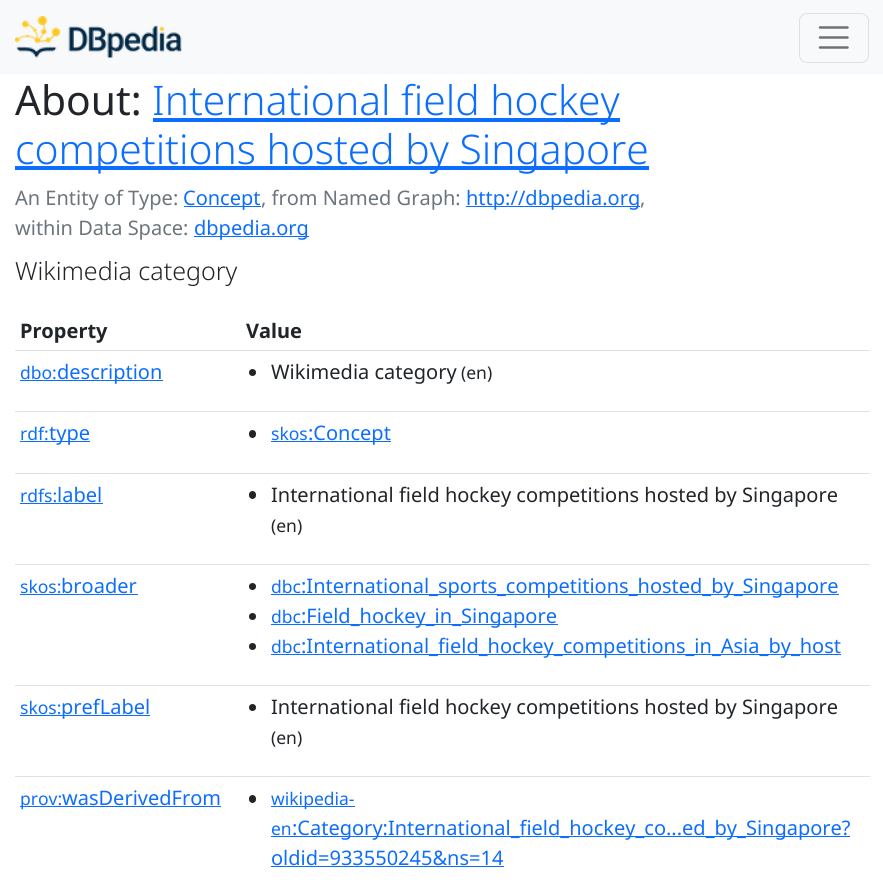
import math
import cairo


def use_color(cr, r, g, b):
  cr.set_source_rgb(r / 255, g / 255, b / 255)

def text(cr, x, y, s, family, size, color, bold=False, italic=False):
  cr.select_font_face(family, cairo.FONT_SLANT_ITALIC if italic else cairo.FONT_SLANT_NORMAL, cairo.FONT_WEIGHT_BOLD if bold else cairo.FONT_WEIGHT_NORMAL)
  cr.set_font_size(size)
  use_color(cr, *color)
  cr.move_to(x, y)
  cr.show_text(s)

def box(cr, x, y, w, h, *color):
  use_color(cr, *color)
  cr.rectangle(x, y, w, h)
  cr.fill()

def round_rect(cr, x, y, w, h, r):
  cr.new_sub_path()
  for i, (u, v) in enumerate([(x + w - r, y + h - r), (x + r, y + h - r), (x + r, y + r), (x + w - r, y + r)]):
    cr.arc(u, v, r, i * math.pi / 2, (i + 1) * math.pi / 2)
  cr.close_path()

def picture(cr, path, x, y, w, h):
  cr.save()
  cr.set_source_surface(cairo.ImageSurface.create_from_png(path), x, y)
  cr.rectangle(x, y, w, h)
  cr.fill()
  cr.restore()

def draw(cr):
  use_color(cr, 255, 255, 255)
  cr.paint()
  box(cr, 0, 0, 883, 74, 248, 249, 250)
  picture(cr, "img_01.png", 15, 16, 167, 42)
  round_rect(cr, 799.5, 13.5, 69, 49, 7.5)
  use_color(cr, 223, 224, 225)
  cr.set_line_width(1)
  cr.stroke()
  cr.new_path()
  cr.move_to(820, 27.5)
  cr.line_to(847.5, 27.5)
  cr.move_to(820, 37.5)
  cr.line_to(847.5, 37.5)
  cr.move_to(820, 47.5)
  cr.line_to(847.5, 47.5)
  use_color(cr, 112, 112, 113)
  cr.set_line_width(2.5)
  cr.set_line_cap(cairo.LINE_CAP_ROUND)
  cr.stroke()
  box(cr, 153, 118, 467, 4, 13, 110, 253)
  box(cr, 15, 166, 634, 4, 13, 110, 253)
  box(cr, 184, 206, 77, 1, 13, 110, 253)
  box(cr, 466, 206, 174, 1, 13, 110, 253)
  box(cr, 194, 236, 115, 1, 13, 110, 253)
  box(cr, 15, 350, 855, 1, 222, 226, 230)
  box(cr, 20, 380, 143, 1, 13, 110, 253)
  box(cr, 15, 411, 855, 1, 222, 226, 230)
  use_color(cr, 33, 37, 41)
  cr.arc(252.5, 372.5, 3.5, 0, 2 * math.pi)
  cr.fill()
  box(cr, 20, 441, 70, 1, 13, 110, 253)
  box(cr, 15, 473, 855, 1, 222, 226, 230)
  use_color(cr, 33, 37, 41)
  round_rect(cr, 249, 430, 7, 8, 3.5)
  cr.fill()
  box(cr, 271, 441, 120, 1, 13, 110, 253)
  box(cr, 20, 503, 83, 1, 13, 110, 253)
  box(cr, 15, 564, 855, 1, 222, 226, 230)
  use_color(cr, 33, 37, 41)
  round_rect(cr, 249, 491, 7, 8, 3.5)
  cr.fill()
  box(cr, 20, 594, 118, 1, 13, 110, 253)
  box(cr, 15, 685, 855, 1, 222, 226, 230)
  use_color(cr, 33, 37, 41)
  cr.arc(252.5, 586.5, 3.5, 0, 2 * math.pi)
  cr.fill()
  box(cr, 271, 594, 568, 1, 13, 110, 253)
  use_color(cr, 33, 37, 41)
  cr.arc(252.5, 616.5, 3.5, 0, 2 * math.pi)
  cr.fill()
  box(cr, 271, 624, 287, 1, 13, 110, 253)
  use_color(cr, 33, 37, 41)
  cr.arc(252.5, 646.5, 3.5, 0, 2 * math.pi)
  cr.fill()
  box(cr, 271, 654, 570, 1, 13, 110, 253)
  box(cr, 20, 715, 130, 1, 13, 110, 253)
  box(cr, 15, 776, 855, 1, 222, 226, 230)
  use_color(cr, 33, 37, 41)
  cr.arc(252.5, 707.5, 3.5, 0, 2 * math.pi)
  cr.fill()
  box(cr, 20, 806, 201, 1, 13, 110, 253)
  use_color(cr, 33, 37, 41)
  round_rect(cr, 249, 795, 7, 8, 3.5)
  cr.fill()
  box(cr, 271, 806, 84, 1, 13, 110, 253)
  box(cr, 271, 836, 579, 1, 13, 110, 253)
  box(cr, 271, 866, 233, 1, 13, 110, 253)
  text(cr, 15, 115, "About:", "Noto Sans", 40.75, (33, 37, 41))
  text(cr, 152, 115, "International field hockey", "Noto Sans Light", 40.75, (13, 110, 253))
  text(cr, 15, 164, "competitions hosted by Singapore", "Noto Sans Light", 40.75, (13, 110, 253))
  text(cr, 15, 205, "An Entity of Type:", "Noto Sans", 20, (108, 117, 125))
  text(cr, 183, 205, "Concept", "Noto Sans", 20, (13, 110, 253))
  text(cr, 261, 205, ", from Named Graph:", "Noto Sans", 20, (108, 117, 125))
  text(cr, 466, 205, "http://dbpedia.org", "Noto Sans", 20, (13, 110, 253))
  text(cr, 640, 205, ",", "Noto Sans", 20, (108, 117, 125))
  text(cr, 15, 235, "within Data Space:", "Noto Sans", 20, (108, 117, 125))
  text(cr, 194, 235, "dbpedia.org", "Noto Sans", 20, (13, 110, 253))
  text(cr, 15, 280, "Wikimedia category", "Noto Sans Light", 25, (33, 37, 41))
  text(cr, 20, 338, "Property", "Noto Sans", 20, (33, 37, 41), bold=True)
  text(cr, 246, 338, "Value", "Noto Sans", 20, (33, 37, 41), bold=True)
  text(cr, 20, 379, "dbo:", "Noto Sans", 17.5, (13, 110, 253))
  text(cr, 57, 379, "description", "Noto Sans", 20, (13, 110, 253))
  text(cr, 271, 379, "Wikimedia category", "Noto Sans", 20, (33, 37, 41))
  text(cr, 461, 379, "(en)", "Noto Sans", 17.5, (33, 37, 41))
  text(cr, 20, 440, "rdf:", "Noto Sans", 17.5, (13, 110, 253))
  text(cr, 49, 440, "type", "Noto Sans", 20, (13, 110, 253))
  text(cr, 271, 440, "skos", "Noto Sans", 17.5, (13, 110, 253))
  text(cr, 308, 440, ":Concept", "Noto Sans", 20, (13, 110, 253))
  text(cr, 20, 502, "rdfs:", "Noto Sans", 17.5, (13, 110, 253))
  text(cr, 57, 502, "label", "Noto Sans", 20, (13, 110, 253))
  text(cr, 271, 502, "International field hockey competitions hosted by Singapore", "Noto Sans", 20, (33, 37, 41))
  text(cr, 271, 532, "(en)", "Noto Sans", 17.5, (33, 37, 41))
  text(cr, 20, 593, "skos:", "Noto Sans", 17.5, (13, 110, 253))
  text(cr, 61, 593, "broader", "Noto Sans", 20, (13, 110, 253))
  text(cr, 271, 593, "dbc", "Noto Sans", 17.5, (13, 110, 253))
  text(cr, 301, 593, ":International_sports_competitions_hosted_by_Singapore", "Noto Sans", 20, (13, 110, 253))
  text(cr, 271, 623, "dbc", "Noto Sans", 17.5, (13, 110, 253))
  text(cr, 301, 623, ":Field_hockey_in_Singapore", "Noto Sans", 20, (13, 110, 253))
  text(cr, 271, 653, "dbc", "Noto Sans", 17.5, (13, 110, 253))
  text(cr, 301, 653, ":International_field_hockey_competitions_in_Asia_by_host", "Noto Sans", 20, (13, 110, 253))
  text(cr, 20, 714, "skos:", "Noto Sans", 17.5, (13, 110, 253))
  text(cr, 61, 714, "prefLabel", "Noto Sans", 20, (13, 110, 253))
  text(cr, 271, 714, "International field hockey competitions hosted by Singapore", "Noto Sans", 20, (33, 37, 41))
  text(cr, 271, 744, "(en)", "Noto Sans", 17.5, (33, 37, 41))
  text(cr, 20, 805, "prov:", "Noto Sans", 17.5, (13, 110, 253))
  text(cr, 62, 805, "wasDerivedFrom", "Noto Sans", 20, (13, 110, 253))
  text(cr, 271, 805, "wikipedia-", "Noto Sans", 17.5, (13, 110, 253))
  text(cr, 271, 835, "en", "Noto Sans", 17.5, (13, 110, 253))
  text(cr, 292, 835, ":Category:International_field_hockey_co...ed_by_Singapore?", "Noto Sans", 20, (13, 110, 253))
  text(cr, 271, 865, "oldid=933550245&ns=14", "Noto Sans", 20, (13, 110, 253))


surface = cairo.ImageSurface(cairo.FORMAT_RGB24, 883, 883)
cr = cairo.Context(surface)
options = cairo.FontOptions()
options.set_hint_metrics(cairo.HINT_METRICS_OFF)
options.set_hint_style(cairo.HINT_STYLE_NONE)
cr.set_font_options(options)
cr.set_miter_limit(4)
draw(cr)
surface.write_to_png("out.png")
